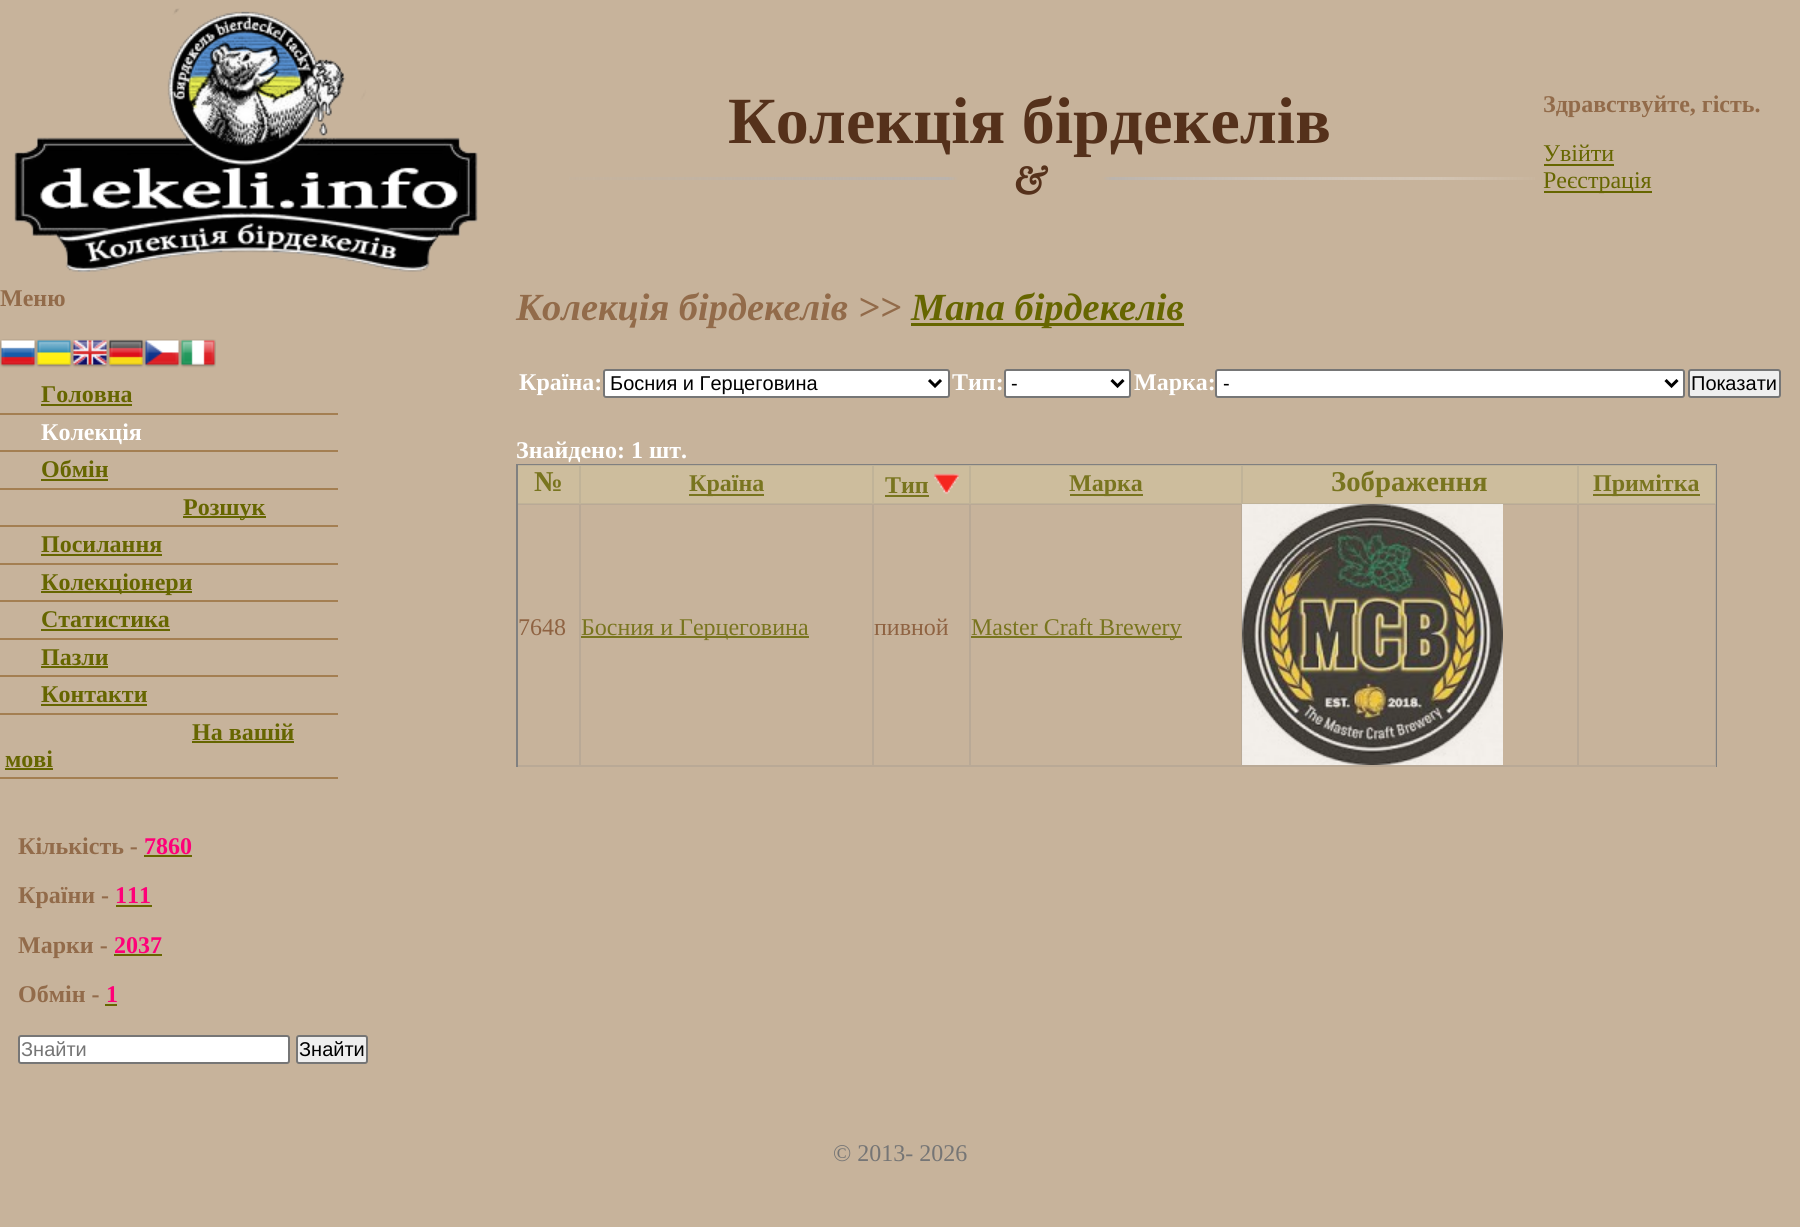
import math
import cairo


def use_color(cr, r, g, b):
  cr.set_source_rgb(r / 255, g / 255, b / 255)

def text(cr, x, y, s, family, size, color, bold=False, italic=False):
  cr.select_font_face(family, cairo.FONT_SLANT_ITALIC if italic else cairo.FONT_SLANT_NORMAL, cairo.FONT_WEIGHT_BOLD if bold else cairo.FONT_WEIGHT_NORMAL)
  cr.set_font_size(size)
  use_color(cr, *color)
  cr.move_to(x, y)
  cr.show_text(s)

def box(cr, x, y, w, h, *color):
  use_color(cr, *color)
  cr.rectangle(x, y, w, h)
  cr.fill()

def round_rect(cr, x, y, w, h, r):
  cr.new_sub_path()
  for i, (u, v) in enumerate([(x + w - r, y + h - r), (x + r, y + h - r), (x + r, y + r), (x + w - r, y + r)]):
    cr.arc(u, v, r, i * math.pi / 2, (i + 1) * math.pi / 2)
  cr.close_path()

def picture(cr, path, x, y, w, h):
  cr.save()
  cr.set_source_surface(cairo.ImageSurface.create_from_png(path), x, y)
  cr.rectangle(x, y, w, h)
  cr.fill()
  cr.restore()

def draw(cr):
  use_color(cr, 199, 179, 155)
  cr.paint()
  box(cr, 518, 466, 1197, 37, 205, 189, 157)
  box(cr, 579, 465, 2, 39, 192, 179, 152)
  box(cr, 872, 465, 2, 39, 192, 179, 152)
  box(cr, 969, 465, 2, 39, 192, 179, 152)
  box(cr, 1241, 465, 2, 39, 192, 179, 152)
  box(cr, 1577, 465, 2, 39, 192, 179, 152)
  box(cr, 518, 504, 63, 1, 185, 169, 150)
  box(cr, 518, 503, 63, 1, 192, 179, 152)
  box(cr, 579, 504, 2, 263, 185, 169, 150)
  box(cr, 872, 504, 2, 263, 185, 169, 150)
  box(cr, 969, 504, 2, 263, 185, 169, 150)
  box(cr, 1241, 504, 2, 263, 185, 169, 150)
  box(cr, 1577, 504, 2, 263, 185, 169, 150)
  box(cr, 579, 504, 1137, 1, 185, 169, 150)
  box(cr, 579, 503, 1137, 1, 192, 179, 152)
  picture(cr, "img_01.png", 14, 8, 464, 265)
  box(cr, 1544, 164, 70, 2, 102, 102, 0)
  box(cr, 1544, 191, 108, 2, 102, 102, 0)
  picture(cr, "img_02.png", 0, 339, 36, 29)
  picture(cr, "img_03.png", 36, 339, 36, 29)
  picture(cr, "img_04.png", 72, 339, 36, 29)
  picture(cr, "img_05.png", 108, 339, 36, 29)
  picture(cr, "img_06.png", 144, 339, 36, 29)
  picture(cr, "img_07.png", 180, 339, 36, 29)
  box(cr, 0, 413, 338, 2, 164, 127, 82)
  box(cr, 41, 404, 91, 2, 102, 102, 0)
  box(cr, 0, 450, 338, 2, 164, 127, 82)
  box(cr, 0, 488, 338, 2, 164, 127, 82)
  box(cr, 41, 479, 67, 2, 102, 102, 0)
  box(cr, 0, 525, 338, 2, 164, 127, 82)
  box(cr, 183, 516, 83, 2, 102, 102, 0)
  box(cr, 0, 563, 338, 2, 164, 127, 82)
  box(cr, 41, 554, 121, 2, 102, 102, 0)
  box(cr, 0, 600, 338, 2, 164, 127, 82)
  box(cr, 41, 591, 151, 2, 102, 102, 0)
  box(cr, 0, 638, 338, 2, 164, 127, 82)
  box(cr, 41, 629, 129, 2, 102, 102, 0)
  box(cr, 0, 675, 338, 2, 164, 127, 82)
  box(cr, 41, 666, 67, 2, 102, 102, 0)
  box(cr, 0, 713, 338, 2, 164, 127, 82)
  box(cr, 41, 704, 106, 2, 102, 102, 0)
  box(cr, 0, 777, 338, 2, 164, 127, 82)
  box(cr, 192, 741, 102, 2, 102, 102, 0)
  box(cr, 5, 768, 48, 2, 102, 102, 0)
  box(cr, 144, 855, 48, 2, 102, 102, 0)
  box(cr, 116, 905, 36, 2, 102, 102, 0)
  box(cr, 114, 954, 48, 2, 102, 102, 0)
  box(cr, 105, 1004, 12, 2, 102, 102, 0)
  use_color(cr, 255, 255, 255)
  round_rect(cr, 19, 1036, 270, 27, 2)
  cr.fill_preserve()
  use_color(cr, 118, 118, 118)
  cr.stroke()
  use_color(cr, 239, 239, 239)
  round_rect(cr, 297, 1036, 70, 27, 2)
  cr.fill_preserve()
  use_color(cr, 118, 118, 118)
  cr.stroke()
  box(cr, 911, 323, 273, 3, 102, 102, 0)
  use_color(cr, 255, 255, 255)
  round_rect(cr, 604, 370, 345, 27, 2)
  cr.fill_preserve()
  use_color(cr, 118, 118, 118)
  cr.stroke()
  cr.new_path()
  cr.move_to(929, 380)
  cr.line_to(935, 386)
  cr.line_to(941, 380)
  use_color(cr, 0, 0, 0)
  cr.set_line_width(3)
  cr.stroke()
  use_color(cr, 255, 255, 255)
  round_rect(cr, 1005, 370, 125, 27, 2)
  cr.fill_preserve()
  use_color(cr, 118, 118, 118)
  cr.set_line_width(2)
  cr.stroke()
  cr.new_path()
  cr.move_to(1111.5, 380)
  cr.line_to(1117.5, 386)
  cr.line_to(1123.5, 380)
  use_color(cr, 0, 0, 0)
  cr.set_line_width(3)
  cr.stroke()
  use_color(cr, 255, 255, 255)
  round_rect(cr, 1216, 370, 468, 27, 2)
  cr.fill_preserve()
  use_color(cr, 118, 118, 118)
  cr.set_line_width(2)
  cr.stroke()
  cr.new_path()
  cr.move_to(1665.5, 380)
  cr.line_to(1671.5, 386)
  cr.line_to(1677.5, 380)
  use_color(cr, 0, 0, 0)
  cr.set_line_width(3)
  cr.stroke()
  use_color(cr, 239, 239, 239)
  round_rect(cr, 1689, 370, 91, 27, 2)
  cr.fill_preserve()
  use_color(cr, 118, 118, 118)
  cr.set_line_width(2)
  cr.stroke()
  box(cr, 516, 464, 1200, 1, 128, 128, 128)
  box(cr, 518, 465, 1198, 1, 191, 178, 152)
  box(cr, 1715, 464, 2, 303, 128, 128, 128)
  box(cr, 1715, 504, 1, 263, 185, 169, 150)
  box(cr, 1715, 465, 1, 39, 191, 178, 152)
  box(cr, 518, 765, 1198, 2, 185, 169, 150)
  box(cr, 516, 464, 2, 303, 128, 128, 128)
  box(cr, 689, 494, 75, 2, 121, 117, 31)
  box(cr, 885, 495, 44, 2, 121, 117, 31)
  picture(cr, "img_08.png", 934, 473, 25, 21)
  box(cr, 1070, 494, 73, 2, 121, 117, 31)
  box(cr, 1593, 494, 107, 2, 121, 117, 31)
  box(cr, 581, 636, 228, 2, 121, 117, 31)
  box(cr, 971, 636, 211, 2, 121, 117, 31)
  picture(cr, "img_09.png", 1242, 504, 261, 261)
  text(cr, 728, 143, "Колекція бірдекелів", "Liberation Serif", 66, (85, 49, 27), bold=True)
  text(cr, 1013, 194, "&", "Alice", 38, (85, 49, 27), bold=True)
  gradient = cairo.LinearGradient(516, 179, 1544, 178)
  gradient.add_color_stop_rgba(0, 0.714, 0.706, 0.706, 0)
  gradient.add_color_stop_rgba(0.42, 0.714, 0.706, 0.706, 0.7)
  gradient.add_color_stop_rgba(0.43, 0.714, 0.706, 0.706, 0)
  gradient.add_color_stop_rgba(0.5, 0.659, 0.651, 0.651, 0)
  gradient.add_color_stop_rgba(0.57, 0.714, 0.706, 0.706, 0)
  gradient.add_color_stop_rgba(0.58, 0.714, 0.706, 0.706, 0.7)
  gradient.add_color_stop_rgba(0.9, 0.933, 0.929, 0.929, 0.3)
  gradient.add_color_stop_rgba(1, 0.933, 0.929, 0.929, 0)
  cr.set_source(gradient)
  cr.rectangle(569, 177, 966, 3)
  cr.fill()
  text(cr, 1543, 112, "Здравствуйте, гість.", "Liberation Serif", 24, (146, 107, 74), bold=True)
  text(cr, 1543, 161, "Увійти", "Liberation Serif", 24, (102, 102, 0))
  text(cr, 1543, 188, "Реєстрація", "Liberation Serif", 24, (102, 102, 0))
  text(cr, 0, 306, "Меню", "Liberation Serif", 24, (146, 107, 74), bold=True)
  text(cr, 41, 402, "Головна", "Liberation Serif", 24, (102, 102, 0), bold=True)
  text(cr, 41, 440, "Колекція", "Liberation Serif", 24, (255, 255, 255), bold=True)
  text(cr, 41, 477, "Обмін", "Liberation Serif", 24, (102, 102, 0), bold=True)
  text(cr, 183, 515, "Розшук", "Liberation Serif", 24, (102, 102, 0), bold=True)
  text(cr, 41, 552, "Посилання", "Liberation Serif", 24, (102, 102, 0), bold=True)
  text(cr, 41, 590, "Колекціонери", "Liberation Serif", 24, (102, 102, 0), bold=True)
  text(cr, 41, 627, "Статистика", "Liberation Serif", 24, (102, 102, 0), bold=True)
  text(cr, 41, 665, "Пазли", "Liberation Serif", 24, (102, 102, 0), bold=True)
  text(cr, 41, 702, "Контакти", "Liberation Serif", 24, (102, 102, 0), bold=True)
  text(cr, 192, 740, "На вашій", "Liberation Serif", 24, (102, 102, 0), bold=True)
  text(cr, 5, 767, "мові", "Liberation Serif", 24, (102, 102, 0), bold=True)
  text(cr, 18, 854, "Кількість -", "Liberation Serif", 24, (146, 107, 74), bold=True)
  text(cr, 144, 854, "7860", "Liberation Serif", 24, (255, 0, 120), bold=True)
  text(cr, 18, 903, "Країни -", "Liberation Serif", 24, (146, 107, 74), bold=True)
  text(cr, 115, 903, "111", "Liberation Serif", 24, (255, 0, 120), bold=True)
  text(cr, 18, 953, "Марки -", "Liberation Serif", 24, (146, 107, 74), bold=True)
  text(cr, 114, 953, "2037", "Liberation Serif", 24, (255, 0, 120), bold=True)
  text(cr, 18, 1002, "Обмін -", "Liberation Serif", 24, (146, 107, 74), bold=True)
  text(cr, 106, 1002, "1", "Liberation Serif", 24, (255, 0, 120), bold=True)
  text(cr, 21, 1056, "Знайти", "Liberation Sans", 20, (117, 117, 117))
  text(cr, 299, 1056, "Знайти", "Liberation Sans", 20, (0, 0, 0))
  text(cr, 516, 320, "Колекція бірдекелів >>", "Liberation Serif", 38.4, (146, 107, 74), bold=True, italic=True)
  text(cr, 911, 320, "Мапа бірдекелів", "Liberation Serif", 38.4, (102, 102, 0), bold=True, italic=True)
  text(cr, 519, 390, "Країна:", "Liberation Serif", 24, (255, 255, 255), bold=True)
  text(cr, 610, 390, "Босния и Герцеговина", "Liberation Sans", 20, (0, 0, 0))
  text(cr, 952, 390, "Тип:", "Liberation Serif", 24, (255, 255, 255), bold=True)
  text(cr, 1011, 390, "-", "Liberation Sans", 20, (0, 0, 0))
  text(cr, 1134, 390, "Марка:", "Liberation Serif", 24, (255, 255, 255), bold=True)
  text(cr, 1223, 390, "-", "Liberation Sans", 20, (0, 0, 0))
  text(cr, 1691, 390, "Показати", "Liberation Sans", 20, (0, 0, 0))
  text(cr, 516, 458, "Знайдено: 1 шт.", "Liberation Serif", 24, (255, 255, 255), bold=True)
  text(cr, 534, 491, "№", "Liberation Serif", 28.75, (121, 117, 31), bold=True)
  text(cr, 689, 491, "Країна", "Liberation Serif", 24, (121, 117, 31), bold=True)
  text(cr, 885, 493, "Тип", "Liberation Serif", 24, (121, 117, 31), bold=True)
  text(cr, 1069, 491, "Марка", "Liberation Serif", 24, (121, 117, 31), bold=True)
  text(cr, 1331, 491, "Зображення", "Liberation Serif", 28.75, (121, 117, 31), bold=True)
  text(cr, 1593, 491, "Примітка", "Liberation Serif", 24, (121, 117, 31), bold=True)
  text(cr, 518, 635, "7648", "Liberation Serif", 24, (143, 99, 66))
  text(cr, 581, 635, "Босния и Герцеговина", "Liberation Serif", 24, (121, 117, 31))
  text(cr, 874, 635, "пивной", "Liberation Serif", 24, (143, 99, 66))
  text(cr, 971, 635, "Master Craft Brewery", "Liberation Serif", 24, (121, 117, 31))
  text(cr, 833, 1161, "© 2013- 2026", "Liberation Serif", 24, (117, 117, 117))


surface = cairo.ImageSurface(cairo.FORMAT_RGB24, 1800, 1227)
cr = cairo.Context(surface)
options = cairo.FontOptions()
options.set_hint_metrics(cairo.HINT_METRICS_OFF)
options.set_hint_style(cairo.HINT_STYLE_NONE)
cr.set_font_options(options)
cr.set_miter_limit(4)
draw(cr)
surface.write_to_png("out.png")
